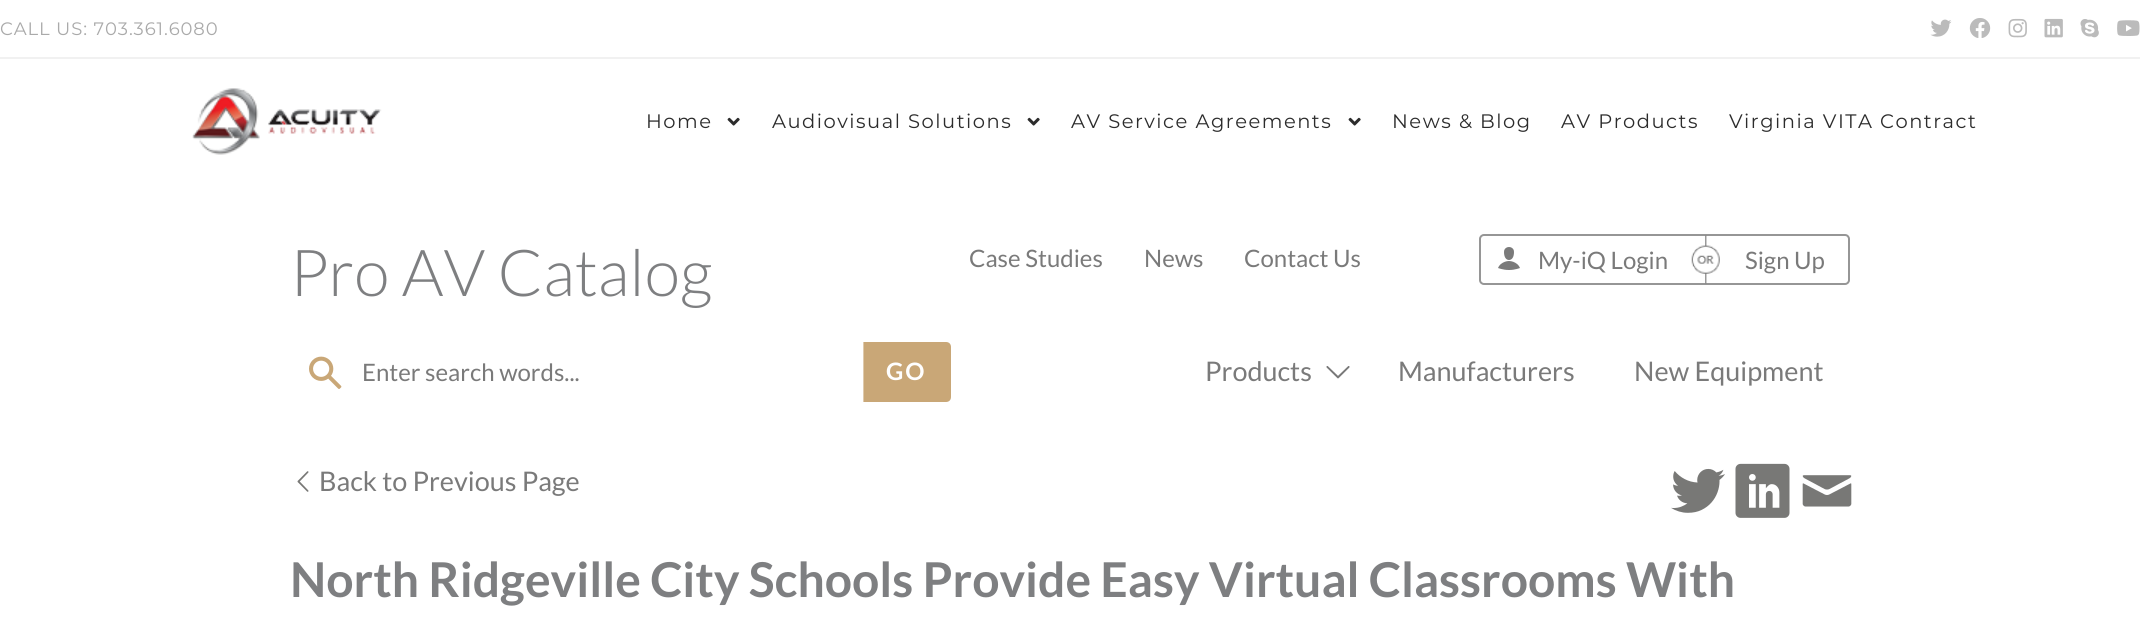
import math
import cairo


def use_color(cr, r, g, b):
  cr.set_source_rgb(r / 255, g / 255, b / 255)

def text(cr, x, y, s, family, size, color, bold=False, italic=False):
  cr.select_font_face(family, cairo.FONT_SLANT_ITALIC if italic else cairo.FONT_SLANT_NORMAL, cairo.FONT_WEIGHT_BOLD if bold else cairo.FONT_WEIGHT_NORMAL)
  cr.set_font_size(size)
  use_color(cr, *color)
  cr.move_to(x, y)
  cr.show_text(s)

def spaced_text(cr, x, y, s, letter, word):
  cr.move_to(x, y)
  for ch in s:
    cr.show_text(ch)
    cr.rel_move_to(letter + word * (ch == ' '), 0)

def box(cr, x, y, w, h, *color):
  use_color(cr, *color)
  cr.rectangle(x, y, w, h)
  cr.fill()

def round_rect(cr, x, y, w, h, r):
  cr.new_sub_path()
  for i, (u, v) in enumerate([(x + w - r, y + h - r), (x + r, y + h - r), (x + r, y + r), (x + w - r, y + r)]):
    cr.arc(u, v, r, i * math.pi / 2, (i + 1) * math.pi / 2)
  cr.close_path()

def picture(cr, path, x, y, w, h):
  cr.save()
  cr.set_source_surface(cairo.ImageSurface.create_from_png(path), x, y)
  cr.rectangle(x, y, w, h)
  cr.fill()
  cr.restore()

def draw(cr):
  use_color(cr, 255, 255, 255)
  cr.paint()
  box(cr, 0, 57, 2140, 2, 241, 241, 241)
  picture(cr, "img_01.png", 1930, 19, 22, 18)
  picture(cr, "img_02.png", 1969, 18, 22, 20)
  picture(cr, "img_03.png", 2008, 18, 19, 20)
  picture(cr, "img_04.png", 2044, 18, 19, 20)
  picture(cr, "img_05.png", 2080, 19, 19, 19)
  picture(cr, "img_06.png", 2117, 20, 23, 16)
  picture(cr, "img_07.png", 192, 88, 190, 67)
  picture(cr, "img_08.png", 727, 117, 13, 9)
  picture(cr, "img_08.png", 1027, 117, 13, 9)
  picture(cr, "img_08.png", 1348, 117, 13, 9)
  round_rect(cr, 1480, 235, 369, 49, 4)
  use_color(cr, 150, 150, 150)
  cr.stroke()
  picture(cr, "img_09.png", 1498, 247, 22, 23)
  picture(cr, "img_10.png", 1691, 235, 29, 49)
  picture(cr, "img_11.png", 309, 356, 33, 33)
  use_color(cr, 201, 167, 119)
  cr.new_path()
  cr.move_to(863, 342)
  cr.line_to(946, 342)
  cr.curve_to(949, 342, 951, 344, 951, 347)
  cr.line_to(951, 397)
  cr.curve_to(951, 400, 949, 402, 946, 402)
  cr.line_to(863, 402)
  cr.close_path()
  cr.fill()
  box(cr, 863, 342, 1, 60, 223, 202, 173)
  picture(cr, "img_12.png", 1326, 366, 24, 13)
  picture(cr, "img_13.png", 297, 471, 12, 21)
  picture(cr, "img_14.png", 1671, 468, 54, 45)
  picture(cr, "img_15.png", 1735, 463, 55, 55)
  picture(cr, "img_16.png", 1802, 475, 50, 32)
  cr.select_font_face("Montserrat")
  cr.set_font_size(18)
  use_color(cr, 170, 170, 170)
  spaced_text(cr, 0, 35, "CALL US: 703.361.6080", 0.9, 0)
  cr.set_font_size(19.5)
  use_color(cr, 44, 44, 44)
  spaced_text(cr, 646, 128, "Home", 1.5, 0)
  spaced_text(cr, 772, 128, "Audiovisual Solutions", 1.5, 0)
  spaced_text(cr, 1071, 128, "AV Service Agreements", 1.5, 0)
  spaced_text(cr, 1392, 128, "News & Blog", 1.5, 0)
  spaced_text(cr, 1561, 128, "AV Products", 1.5, 0)
  spaced_text(cr, 1729, 128, "Virginia VITA Contract", 1.5, 0)
  text(cr, 290, 296, "Pro AV Catalog", "Lato Light", 64.75, (126, 127, 129))
  text(cr, 969, 267, "Case Studies", "Lato", 24, (122, 122, 122))
  text(cr, 1144, 267, "News", "Lato", 24, (122, 122, 122))
  text(cr, 1244, 267, "Contact Us", "Lato", 24, (122, 122, 122))
  text(cr, 1538, 269, "My-iQ Login", "Lato", 24, (122, 122, 122))
  text(cr, 1745, 269, "Sign Up", "Lato", 24, (122, 122, 122))
  text(cr, 362, 381, "Enter search words...", "Lato", 24, (122, 122, 122))
  cr.select_font_face("Lato", cairo.FONT_SLANT_NORMAL, cairo.FONT_WEIGHT_BOLD)
  use_color(cr, 255, 255, 255)
  spaced_text(cr, 886, 380, "GO", 2, 0)
  text(cr, 1205, 381, "Products", "Lato", 27, (122, 122, 122))
  text(cr, 1398, 381, "Manufacturers", "Lato", 27, (122, 122, 122))
  text(cr, 1634, 381, "New Equipment", "Lato", 27, (122, 122, 122))
  text(cr, 319, 491, "Back to Previous Page", "Lato", 27, (122, 122, 122))
  text(cr, 290, 597, "North Ridgeville City Schools Provide Easy Virtual Classrooms With", "Lato", 48, (126, 127, 129), bold=True)


surface = cairo.ImageSurface(cairo.FORMAT_RGB24, 2140, 627)
cr = cairo.Context(surface)
options = cairo.FontOptions()
options.set_hint_metrics(cairo.HINT_METRICS_OFF)
options.set_hint_style(cairo.HINT_STYLE_NONE)
cr.set_font_options(options)
cr.set_miter_limit(4)
draw(cr)
surface.write_to_png("out.png")
